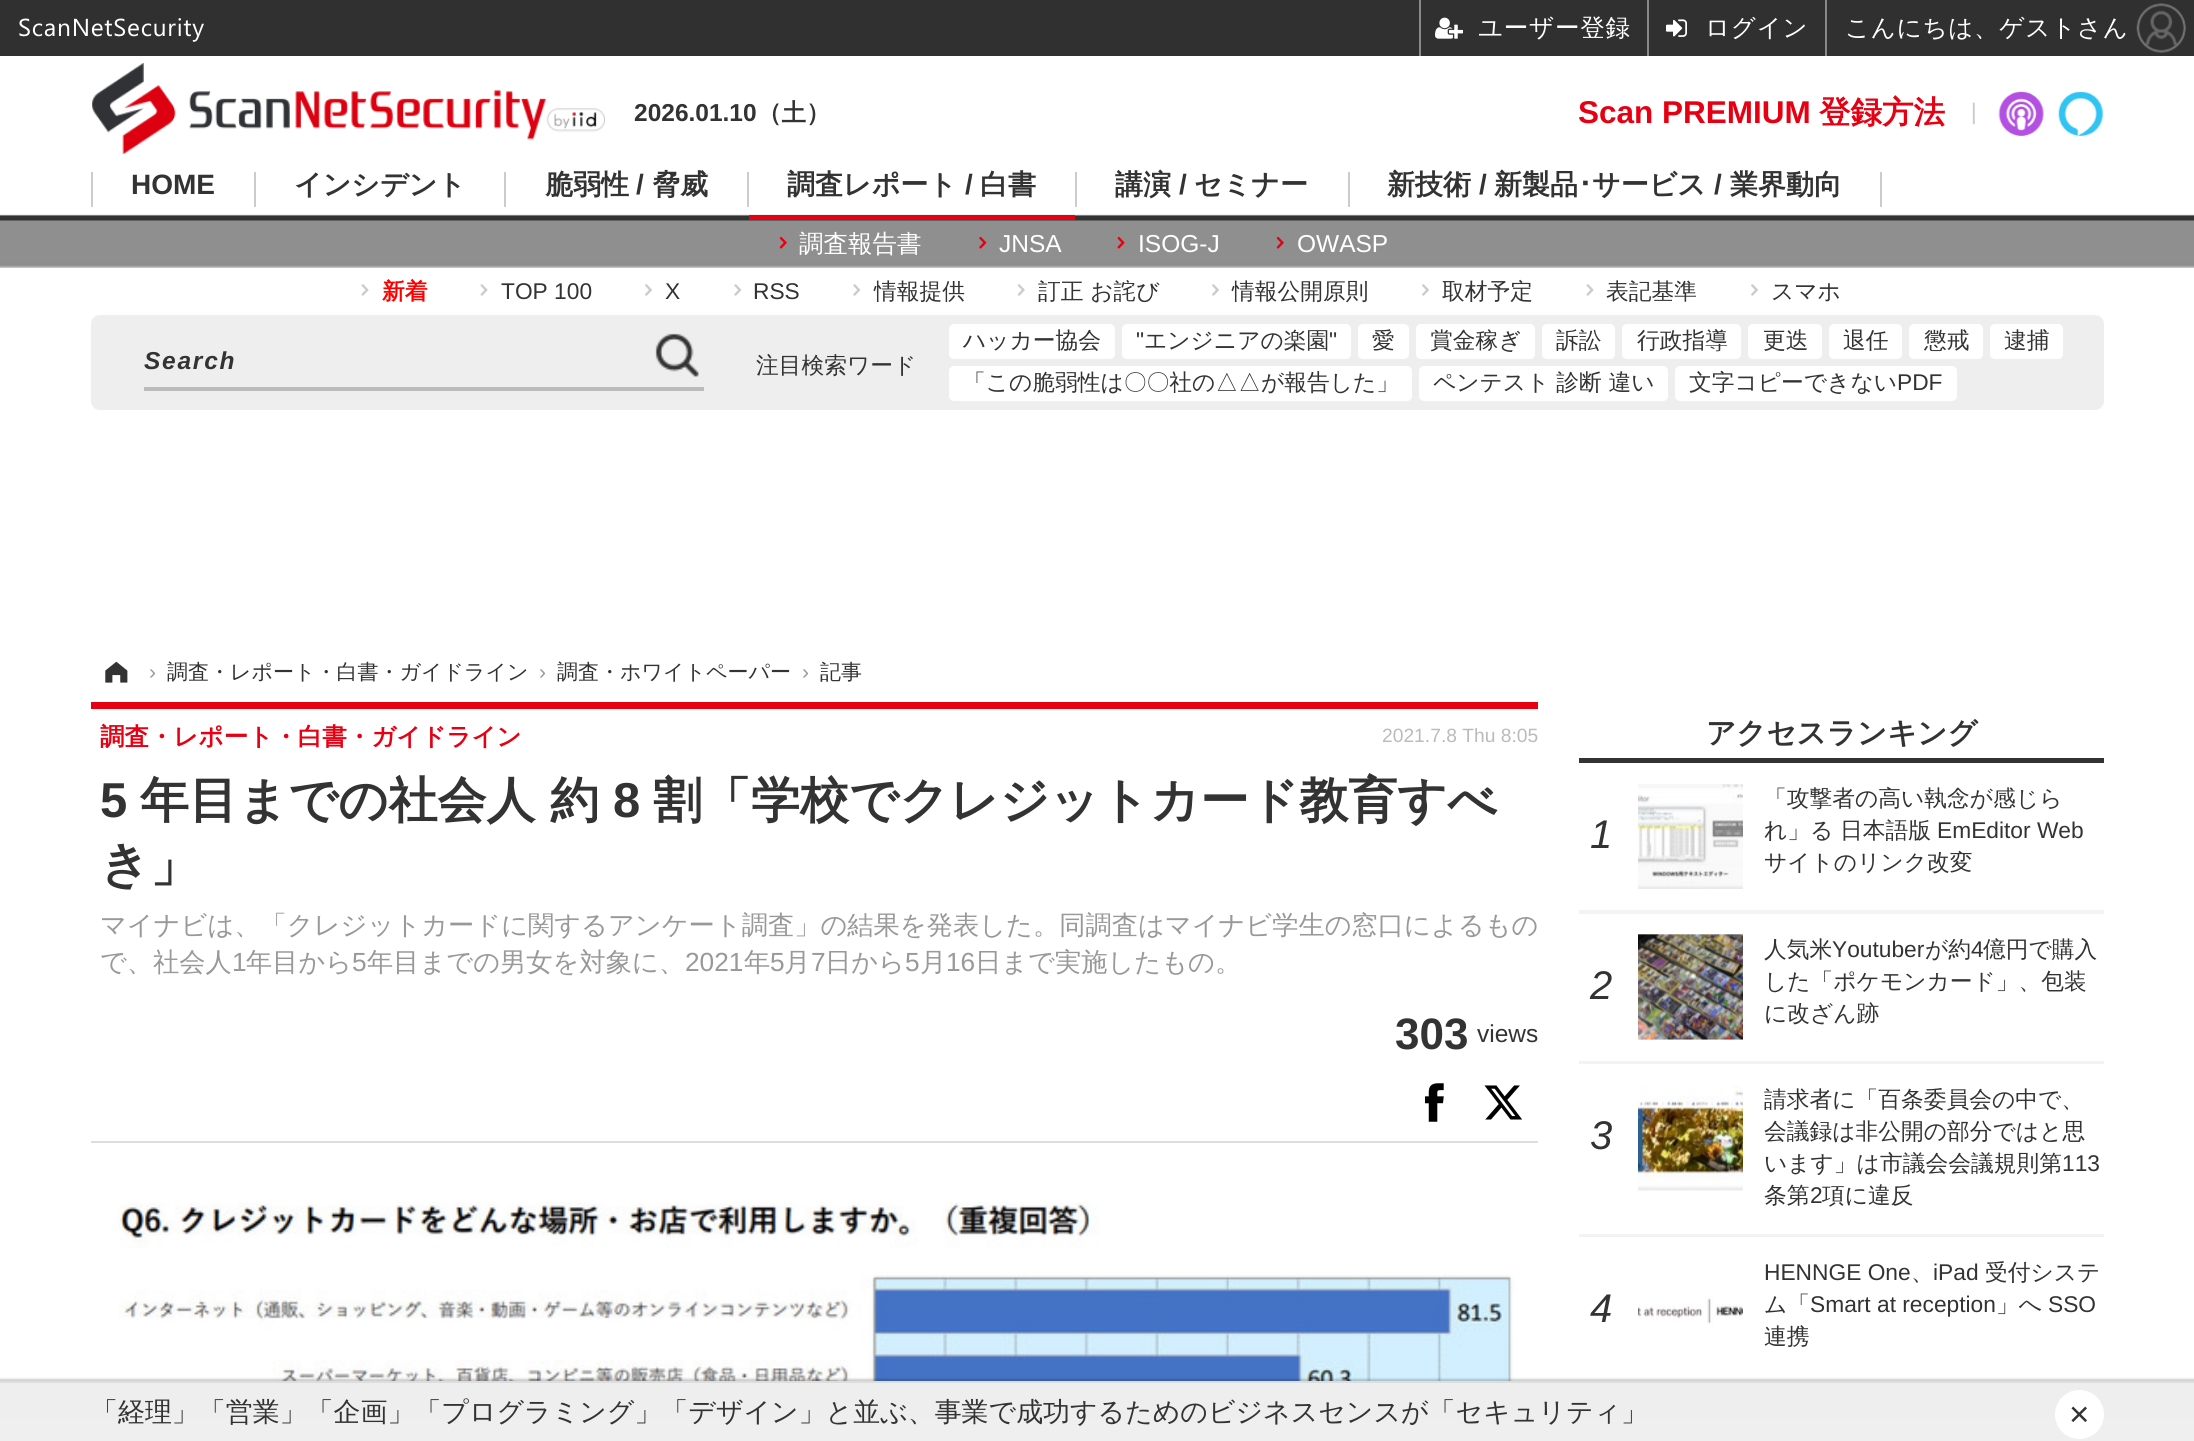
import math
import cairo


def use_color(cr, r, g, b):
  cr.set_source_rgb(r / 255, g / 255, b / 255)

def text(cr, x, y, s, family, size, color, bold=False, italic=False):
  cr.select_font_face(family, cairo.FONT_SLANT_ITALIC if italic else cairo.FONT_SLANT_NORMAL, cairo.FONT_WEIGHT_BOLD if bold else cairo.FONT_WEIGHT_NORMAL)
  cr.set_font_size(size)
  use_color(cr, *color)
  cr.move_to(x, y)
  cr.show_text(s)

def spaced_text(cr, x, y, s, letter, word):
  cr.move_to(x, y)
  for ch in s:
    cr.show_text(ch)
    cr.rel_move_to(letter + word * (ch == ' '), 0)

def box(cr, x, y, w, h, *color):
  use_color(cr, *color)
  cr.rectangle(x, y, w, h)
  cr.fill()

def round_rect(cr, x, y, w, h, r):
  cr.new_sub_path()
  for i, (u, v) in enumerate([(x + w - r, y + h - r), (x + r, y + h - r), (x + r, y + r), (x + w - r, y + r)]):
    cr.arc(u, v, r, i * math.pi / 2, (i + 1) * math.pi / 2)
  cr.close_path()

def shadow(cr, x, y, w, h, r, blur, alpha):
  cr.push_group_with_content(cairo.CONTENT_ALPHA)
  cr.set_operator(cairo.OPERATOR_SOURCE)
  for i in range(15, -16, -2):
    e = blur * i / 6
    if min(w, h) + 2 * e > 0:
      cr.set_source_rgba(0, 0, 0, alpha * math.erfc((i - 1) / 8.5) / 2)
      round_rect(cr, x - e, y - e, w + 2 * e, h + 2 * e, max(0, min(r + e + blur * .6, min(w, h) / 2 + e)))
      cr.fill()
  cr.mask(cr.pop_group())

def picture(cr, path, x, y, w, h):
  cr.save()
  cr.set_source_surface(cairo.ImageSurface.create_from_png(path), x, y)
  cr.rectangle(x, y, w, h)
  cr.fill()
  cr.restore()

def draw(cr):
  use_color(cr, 255, 255, 255)
  cr.paint()
  box(cr, 0, 0, 2194, 56, 48, 48, 48)
  box(cr, 1419, 0, 2, 56, 136, 136, 136)
  picture(cr, "img_01.png", 1435, 17, 28, 22)
  box(cr, 1825, 0, 2, 56, 136, 136, 136)
  box(cr, 1647, 0, 2, 56, 136, 136, 136)
  picture(cr, "img_02.png", 1666, 19, 21, 18)
  picture(cr, "img_03.png", 2136, 3, 50, 50)
  picture(cr, "img_04.png", 1998, 91, 46, 45)
  picture(cr, "img_05.png", 2058, 91, 45, 45)
  picture(cr, "img_06.png", 92, 63, 513, 91)
  picture(cr, "img_07.png", 0, 214, 2194, 54)
  box(cr, 504, 172, 2, 35, 204, 204, 204)
  box(cr, 747, 172, 2, 35, 204, 204, 204)
  box(cr, 749, 215, 326, 5, 230, 0, 18)
  picture(cr, "img_08.png", 779, 237, 8, 12)
  picture(cr, "img_09.png", 979, 236, 8, 13)
  picture(cr, "img_10.png", 1117, 236, 8, 13)
  picture(cr, "img_08.png", 1276, 237, 8, 12)
  box(cr, 91, 172, 2, 35, 204, 204, 204)
  box(cr, 254, 172, 2, 35, 204, 204, 204)
  box(cr, 1075, 172, 2, 35, 204, 204, 204)
  box(cr, 1880, 172, 2, 35, 204, 204, 204)
  box(cr, 1348, 172, 2, 35, 204, 204, 204)
  picture(cr, "img_11.png", 361, 284, 8, 12)
  picture(cr, "img_11.png", 480, 284, 8, 12)
  picture(cr, "img_12.png", 645, 284, 7, 12)
  picture(cr, "img_13.png", 734, 284, 8, 12)
  picture(cr, "img_13.png", 853, 284, 8, 12)
  picture(cr, "img_14.png", 1017, 284, 8, 12)
  picture(cr, "img_12.png", 1212, 284, 7, 12)
  picture(cr, "img_12.png", 1422, 284, 7, 12)
  picture(cr, "img_11.png", 1586, 284, 8, 12)
  picture(cr, "img_12.png", 1751, 284, 7, 12)
  use_color(cr, 238, 238, 238)
  round_rect(cr, 91, 315, 2013, 95, 9)
  cr.fill()
  box(cr, 144, 387, 560, 4, 187, 187, 187)
  picture(cr, "img_15.png", 655, 333, 44, 44)
  use_color(cr, 255, 255, 255)
  round_rect(cr, 949, 324, 166, 35, 5)
  cr.fill()
  round_rect(cr, 1122, 324, 229, 35, 5)
  cr.fill()
  round_rect(cr, 1358, 324, 51, 35, 5)
  cr.fill()
  round_rect(cr, 1416, 324, 119, 35, 5)
  cr.fill()
  round_rect(cr, 1542, 324, 73, 35, 5)
  cr.fill()
  round_rect(cr, 1622, 324, 119, 35, 5)
  cr.fill()
  round_rect(cr, 1748, 324, 74, 35, 5)
  cr.fill()
  round_rect(cr, 1829, 324, 73, 35, 5)
  cr.fill()
  round_rect(cr, 1909, 324, 74, 35, 5)
  cr.fill()
  round_rect(cr, 1990, 324, 73, 35, 5)
  cr.fill()
  round_rect(cr, 949, 366, 463, 35, 5)
  cr.fill()
  round_rect(cr, 1419, 366, 249, 35, 5)
  cr.fill()
  round_rect(cr, 1675, 366, 282, 35, 5)
  cr.fill()
  picture(cr, "img_16.png", 105, 661, 23, 22)
  box(cr, 91, 702, 1447, 7, 230, 0, 18)
  box(cr, 91, 1141, 1447, 2, 221, 221, 221)
  picture(cr, "img_17.png", 1425, 1083, 19, 39)
  picture(cr, "img_18.png", 1484, 1085, 38, 35)
  picture(cr, "img_19.png", 118, 1202, 1397, 179)
  box(cr, 1579, 758, 525, 5, 51, 51, 51)
  box(cr, 1579, 910, 525, 4, 243, 243, 243)
  box(cr, 1638, 784, 105, 105, 238, 238, 238)
  picture(cr, "img_20.png", 1638, 784, 105, 105)
  box(cr, 1579, 1061, 525, 3, 243, 243, 243)
  box(cr, 1638, 935, 105, 105, 238, 238, 238)
  picture(cr, "img_21.png", 1638, 934, 105, 106)
  picture(cr, "img_22.png", 1638, 934, 105, 106)
  box(cr, 1579, 1234, 525, 3, 243, 243, 243)
  picture(cr, "img_23.png", 1638, 1085, 105, 106)
  picture(cr, "img_24.png", 1638, 1190, 105, 1)
  picture(cr, "img_25.png", 1638, 1258, 105, 105)
  use_color(cr, 0, 0, 0)
  shadow(cr, -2, 1379, 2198, 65, 0, 1, 0.2)
  gradient = cairo.LinearGradient(1097, 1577, 1097, 1383)
  gradient.add_color_stop_rgba(0, 1, 1, 1, 1)
  gradient.add_color_stop_rgba(0.68, 1, 1, 1, 1)
  gradient.add_color_stop_rgba(0.68, 0.937, 0.937, 0.937, 1)
  gradient.add_color_stop_rgba(1, 0.933, 0.933, 0.933, 1)
  cr.set_source(gradient)
  cr.rectangle(0, 1383, 2194, 58)
  cr.fill()
  box(cr, 0, 1381, 2194, 2, 221, 221, 221)
  use_color(cr, 255, 255, 255)
  cr.arc(2079.5, 1414.5, 24.5, 0, 2 * math.pi)
  cr.fill()
  cr.select_font_face("Segoe UI")
  cr.set_font_size(24.5)
  spaced_text(cr, 18, 36, "ScanNetSecurity", 0.75, 0)
  cr.select_font_face("WenQuanYi Zen Hei Medium")
  spaced_text(cr, 1478, 36, "ユーザー登録", 0.75, 0)
  spaced_text(cr, 1705, 36, "ログイン", 0.75, 0)
  spaced_text(cr, 1845, 36, "こんにちは、ゲストさん", 0.75, 0)
  text(cr, 1578, 123, "Scan PREMIUM", "Liberation Sans", 31.5, (230, 0, 18), bold=True)
  text(cr, 1819, 123, "登録方法", "WenQuanYi Zen Hei", 31.5, (230, 0, 18), bold=True)
  text(cr, 1963, 119, "｜", "WenQuanYi Zen Hei", 21, (204, 204, 204), bold=True)
  text(cr, 634, 121, "2026.01.10", "Liberation Sans", 24.5, (51, 51, 51), bold=True)
  text(cr, 757, 121, "（土）", "WenQuanYi Zen Hei", 24.5, (51, 51, 51), bold=True)
  text(cr, 545, 194, "脆弱性", "WenQuanYi Zen Hei", 28, (51, 51, 51), bold=True)
  text(cr, 636, 194, "/", "Liberation Sans", 28, (51, 51, 51), bold=True)
  text(cr, 652, 194, "脅威", "WenQuanYi Zen Hei", 28, (51, 51, 51), bold=True)
  text(cr, 787, 194, "調査レポート", "WenQuanYi Zen Hei", 28, (51, 51, 51), bold=True)
  text(cr, 965, 194, "/", "Liberation Sans", 28, (51, 51, 51), bold=True)
  text(cr, 980, 194, "白書", "WenQuanYi Zen Hei", 28, (51, 51, 51), bold=True)
  text(cr, 799, 252, "調査報告書", "WenQuanYi Zen Hei Medium", 24.5, (255, 255, 255))
  text(cr, 999, 252, "JNSA", "Liberation Sans", 24.5, (255, 255, 255))
  text(cr, 1138, 252, "ISOG-J", "Liberation Sans", 24.5, (255, 255, 255))
  text(cr, 1297, 252, "OWASP", "Liberation Sans", 24.5, (255, 255, 255))
  text(cr, 131, 194, "HOME", "Liberation Sans", 28, (51, 51, 51), bold=True)
  text(cr, 294, 194, "インシデント", "WenQuanYi Zen Hei", 28, (51, 51, 51), bold=True)
  text(cr, 1115, 194, "講演", "WenQuanYi Zen Hei", 28, (51, 51, 51), bold=True)
  text(cr, 1179, 194, "/", "Liberation Sans", 28, (51, 51, 51), bold=True)
  text(cr, 1194, 194, "セミナー", "WenQuanYi Zen Hei", 28, (51, 51, 51), bold=True)
  text(cr, 1387, 194, "新技術", "WenQuanYi Zen Hei", 28, (51, 51, 51), bold=True)
  text(cr, 1479, 194, "/", "Liberation Sans", 28, (51, 51, 51), bold=True)
  text(cr, 1494, 194, "新製品", "WenQuanYi Zen Hei", 28, (51, 51, 51), bold=True)
  text(cr, 1578, 194, "･", "IPAPGothic", 28, (51, 51, 51), bold=True)
  text(cr, 1592, 194, "サービス", "WenQuanYi Zen Hei", 28, (51, 51, 51), bold=True)
  text(cr, 1714, 194, "/", "Liberation Sans", 28, (51, 51, 51), bold=True)
  text(cr, 1730, 194, "業界動向", "WenQuanYi Zen Hei", 28, (51, 51, 51), bold=True)
  text(cr, 382, 299, "新着", "WenQuanYi Zen Hei", 22.75, (255, 0, 0), bold=True)
  text(cr, 501, 299, "TOP 100", "Liberation Sans", 22.75, (51, 51, 51))
  text(cr, 665, 299, "X", "Liberation Sans", 22.75, (51, 51, 51))
  text(cr, 753, 299, "RSS", "Liberation Sans", 22.75, (51, 51, 51))
  text(cr, 874, 299, "情報提供", "WenQuanYi Zen Hei Medium", 22.75, (51, 51, 51))
  text(cr, 1038, 299, "訂正 お詫び", "WenQuanYi Zen Hei Medium", 22.75, (51, 51, 51))
  text(cr, 1232, 299, "情報公開原則", "WenQuanYi Zen Hei Medium", 22.75, (51, 51, 51))
  text(cr, 1442, 299, "取材予定", "WenQuanYi Zen Hei Medium", 22.75, (51, 51, 51))
  text(cr, 1606, 299, "表記基準", "WenQuanYi Zen Hei Medium", 22.75, (51, 51, 51))
  text(cr, 1771, 299, "スマホ", "WenQuanYi Zen Hei Medium", 22.75, (51, 51, 51))
  cr.select_font_face("Liberation Sans", cairo.FONT_SLANT_ITALIC, cairo.FONT_WEIGHT_BOLD)
  cr.set_font_size(24.5)
  spaced_text(cr, 144, 369, "Search", 1.75, 0)
  text(cr, 756, 373, "注目検索ワード", "WenQuanYi Zen Hei Medium", 22.75, (51, 51, 51))
  text(cr, 963, 348, "ハッカー協会", "WenQuanYi Zen Hei Medium", 22.75, (51, 51, 51))
  text(cr, 1136, 348, "\"", "Liberation Sans", 22.75, (51, 51, 51))
  text(cr, 1144, 348, "エンジニアの楽園", "WenQuanYi Zen Hei Medium", 22.75, (51, 51, 51))
  text(cr, 1329, 348, "\"", "Liberation Sans", 22.75, (51, 51, 51))
  text(cr, 1372, 348, "愛", "WenQuanYi Zen Hei Medium", 22.75, (51, 51, 51))
  text(cr, 1430, 348, "賞金稼ぎ", "WenQuanYi Zen Hei Medium", 22.75, (51, 51, 51))
  text(cr, 1556, 348, "訴訟", "WenQuanYi Zen Hei Medium", 22.75, (51, 51, 51))
  text(cr, 1637, 348, "行政指導", "WenQuanYi Zen Hei Medium", 22.75, (51, 51, 51))
  text(cr, 1763, 348, "更迭", "WenQuanYi Zen Hei Medium", 22.75, (51, 51, 51))
  text(cr, 1843, 348, "退任", "WenQuanYi Zen Hei Medium", 22.75, (51, 51, 51))
  text(cr, 1924, 348, "懲戒", "WenQuanYi Zen Hei Medium", 22.75, (51, 51, 51))
  text(cr, 2004, 348, "逮捕", "WenQuanYi Zen Hei Medium", 22.75, (51, 51, 51))
  text(cr, 963, 390, "「この脆弱性は〇〇社の△△が報告した」", "WenQuanYi Zen Hei Medium", 22.75, (51, 51, 51))
  text(cr, 1433, 390, "ペンテスト 診断 違い", "WenQuanYi Zen Hei Medium", 22.75, (51, 51, 51))
  text(cr, 1689, 390, "文字コピーできない", "WenQuanYi Zen Hei Medium", 22.75, (51, 51, 51))
  text(cr, 1897, 390, "PDF", "Liberation Sans", 22.75, (51, 51, 51))
  text(cr, 149, 679, "›", "Liberation Sans", 21, (153, 153, 153))
  text(cr, 167, 679, "調査・レポート・白書・ガイドライン", "WenQuanYi Zen Hei Medium", 21, (51, 51, 51))
  text(cr, 539, 679, "›", "Liberation Sans", 21, (153, 153, 153))
  text(cr, 557, 679, "調査・ホワイトペーパー", "WenQuanYi Zen Hei Medium", 21, (51, 51, 51))
  text(cr, 802, 679, "›", "Liberation Sans", 21, (153, 153, 153))
  text(cr, 820, 679, "記事", "WenQuanYi Zen Hei Medium", 21, (51, 51, 51))
  text(cr, 100, 745, "調査・レポート・白書・ガイドライン", "WenQuanYi Zen Hei", 24.5, (230, 0, 18), bold=True)
  text(cr, 1382, 742, "2021.7.8 Thu 8:05", "Liberation Sans", 19.25, (187, 187, 187))
  text(cr, 100, 817, "5", "Liberation Sans", 49, (51, 51, 51), bold=True)
  text(cr, 140, 817, "年目までの社会人 約", "WenQuanYi Zen Hei", 49, (51, 51, 51), bold=True)
  text(cr, 613, 817, "8", "Liberation Sans", 49, (51, 51, 51), bold=True)
  text(cr, 653, 817, "割「学校でクレジットカード教育すべ", "WenQuanYi Zen Hei", 49, (51, 51, 51), bold=True)
  text(cr, 100, 881, "き」", "WenQuanYi Zen Hei", 49, (51, 51, 51), bold=True)
  text(cr, 100, 934, "マイナビは、「クレジットカードに関するアンケート調査」の結果を発表した。同調査はマイナビ学生の窓口によるもの", "WenQuanYi Zen Hei Medium", 26.25, (153, 153, 153))
  text(cr, 100, 971, "で、社会人", "WenQuanYi Zen Hei Medium", 26.25, (153, 153, 153))
  text(cr, 232, 971, "1", "Liberation Sans", 26.25, (153, 153, 153))
  text(cr, 246, 971, "年目から", "WenQuanYi Zen Hei Medium", 26.25, (153, 153, 153))
  text(cr, 352, 971, "5", "Liberation Sans", 26.25, (153, 153, 153))
  text(cr, 367, 971, "年目までの男女を対象に、", "WenQuanYi Zen Hei Medium", 26.25, (153, 153, 153))
  text(cr, 685, 971, "2021", "Liberation Sans", 26.25, (153, 153, 153))
  text(cr, 744, 971, "年", "WenQuanYi Zen Hei Medium", 26.25, (153, 153, 153))
  text(cr, 770, 971, "5", "Liberation Sans", 26.25, (153, 153, 153))
  text(cr, 784, 971, "月", "WenQuanYi Zen Hei Medium", 26.25, (153, 153, 153))
  text(cr, 811, 971, "7", "Liberation Sans", 26.25, (153, 153, 153))
  text(cr, 825, 971, "日から", "WenQuanYi Zen Hei Medium", 26.25, (153, 153, 153))
  text(cr, 905, 971, "5", "Liberation Sans", 26.25, (153, 153, 153))
  text(cr, 920, 971, "月", "WenQuanYi Zen Hei Medium", 26.25, (153, 153, 153))
  text(cr, 946, 971, "16", "Liberation Sans", 26.25, (153, 153, 153))
  text(cr, 975, 971, "日まで実施したもの。", "WenQuanYi Zen Hei Medium", 26.25, (153, 153, 153))
  text(cr, 1395, 1049, "303", "Liberation Sans", 44, (51, 51, 51), bold=True)
  text(cr, 1477, 1042, "views", "Liberation Sans", 24.5, (51, 51, 51))
  text(cr, 1706, 743, "アクセスランキング", "WenQuanYi Zen Hei", 29.5, (51, 51, 51), bold=True)
  text(cr, 1590, 848, "1", "Liberation Sans", 40, (51, 51, 51), italic=True)
  text(cr, 1764, 806, "「攻撃者の高い執念が感じら", "WenQuanYi Zen Hei Medium", 22.75, (51, 51, 51))
  text(cr, 1764, 838, "れ」る", "WenQuanYi Zen Hei Medium", 22.75, (51, 51, 51))
  text(cr, 1840, 838, "日本語版", "WenQuanYi Zen Hei Medium", 22.75, (51, 51, 51))
  text(cr, 1937, 838, "EmEditor Web", "Liberation Sans", 22.75, (51, 51, 51))
  text(cr, 1764, 870, "サイトのリンク改変", "WenQuanYi Zen Hei Medium", 22.75, (51, 51, 51))
  text(cr, 1590, 999, "2", "Liberation Sans", 40, (51, 51, 51), italic=True)
  text(cr, 1764, 957, "人気米", "WenQuanYi Zen Hei Medium", 22.75, (51, 51, 51))
  text(cr, 1832, 957, "Youtuber", "Liberation Sans", 22.75, (51, 51, 51))
  text(cr, 1925, 957, "が約", "WenQuanYi Zen Hei Medium", 22.75, (51, 51, 51))
  text(cr, 1971, 957, "4", "Liberation Sans", 22.75, (51, 51, 51))
  text(cr, 1983, 957, "億円で購入", "WenQuanYi Zen Hei Medium", 22.75, (51, 51, 51))
  text(cr, 1764, 989, "した「ポケモンカード」、包装", "WenQuanYi Zen Hei Medium", 22.75, (51, 51, 51))
  text(cr, 1764, 1021, "に改ざん跡", "WenQuanYi Zen Hei Medium", 22.75, (51, 51, 51))
  text(cr, 1590, 1149, "3", "Liberation Sans", 40, (51, 51, 51), italic=True)
  text(cr, 1764, 1107, "請求者に「百条委員会の中で、", "WenQuanYi Zen Hei Medium", 22.75, (51, 51, 51))
  text(cr, 1764, 1139, "会議録は非公開の部分ではと思", "WenQuanYi Zen Hei Medium", 22.75, (51, 51, 51))
  text(cr, 1764, 1171, "います」は市議会会議規則第", "WenQuanYi Zen Hei Medium", 22.75, (51, 51, 51))
  text(cr, 2062, 1171, "113", "Liberation Sans", 22.75, (51, 51, 51))
  text(cr, 1764, 1203, "条第", "WenQuanYi Zen Hei Medium", 22.75, (51, 51, 51))
  text(cr, 1810, 1203, "2", "Liberation Sans", 22.75, (51, 51, 51))
  text(cr, 1822, 1203, "項に違反", "WenQuanYi Zen Hei Medium", 22.75, (51, 51, 51))
  text(cr, 1590, 1322, "4", "Liberation Sans", 40, (51, 51, 51), italic=True)
  text(cr, 1764, 1280, "HENNGE One", "Liberation Sans", 22.75, (51, 51, 51))
  text(cr, 1911, 1280, "、", "WenQuanYi Zen Hei Medium", 22.75, (51, 51, 51))
  text(cr, 1933, 1280, "iPad", "Liberation Sans", 22.75, (51, 51, 51))
  text(cr, 1985, 1280, "受付システ", "WenQuanYi Zen Hei Medium", 22.75, (51, 51, 51))
  text(cr, 1764, 1312, "ム「", "WenQuanYi Zen Hei Medium", 22.75, (51, 51, 51))
  text(cr, 1810, 1312, "Smart at reception", "Liberation Sans", 22.75, (51, 51, 51))
  text(cr, 1996, 1312, "」へ", "WenQuanYi Zen Hei Medium", 22.75, (51, 51, 51))
  text(cr, 2048, 1312, "SSO", "Liberation Sans", 22.75, (51, 51, 51))
  text(cr, 1764, 1344, "連携", "WenQuanYi Zen Hei Medium", 22.75, (51, 51, 51))
  text(cr, 91, 1421, "「経理」「営業」「企画」「プログラミング」「デザイン」と並ぶ、事業で成功するためのビジネスセンスが「セキュリティ」", "WenQuanYi Zen Hei Medium", 26.95, (51, 51, 51))
  text(cr, 2069, 1426, "×", "Liberation Sans", 35, (51, 51, 51))


surface = cairo.ImageSurface(cairo.FORMAT_RGB24, 2194, 1441)
cr = cairo.Context(surface)
options = cairo.FontOptions()
options.set_hint_metrics(cairo.HINT_METRICS_OFF)
options.set_hint_style(cairo.HINT_STYLE_NONE)
cr.set_font_options(options)
cr.set_miter_limit(4)
draw(cr)
surface.write_to_png("out.png")
